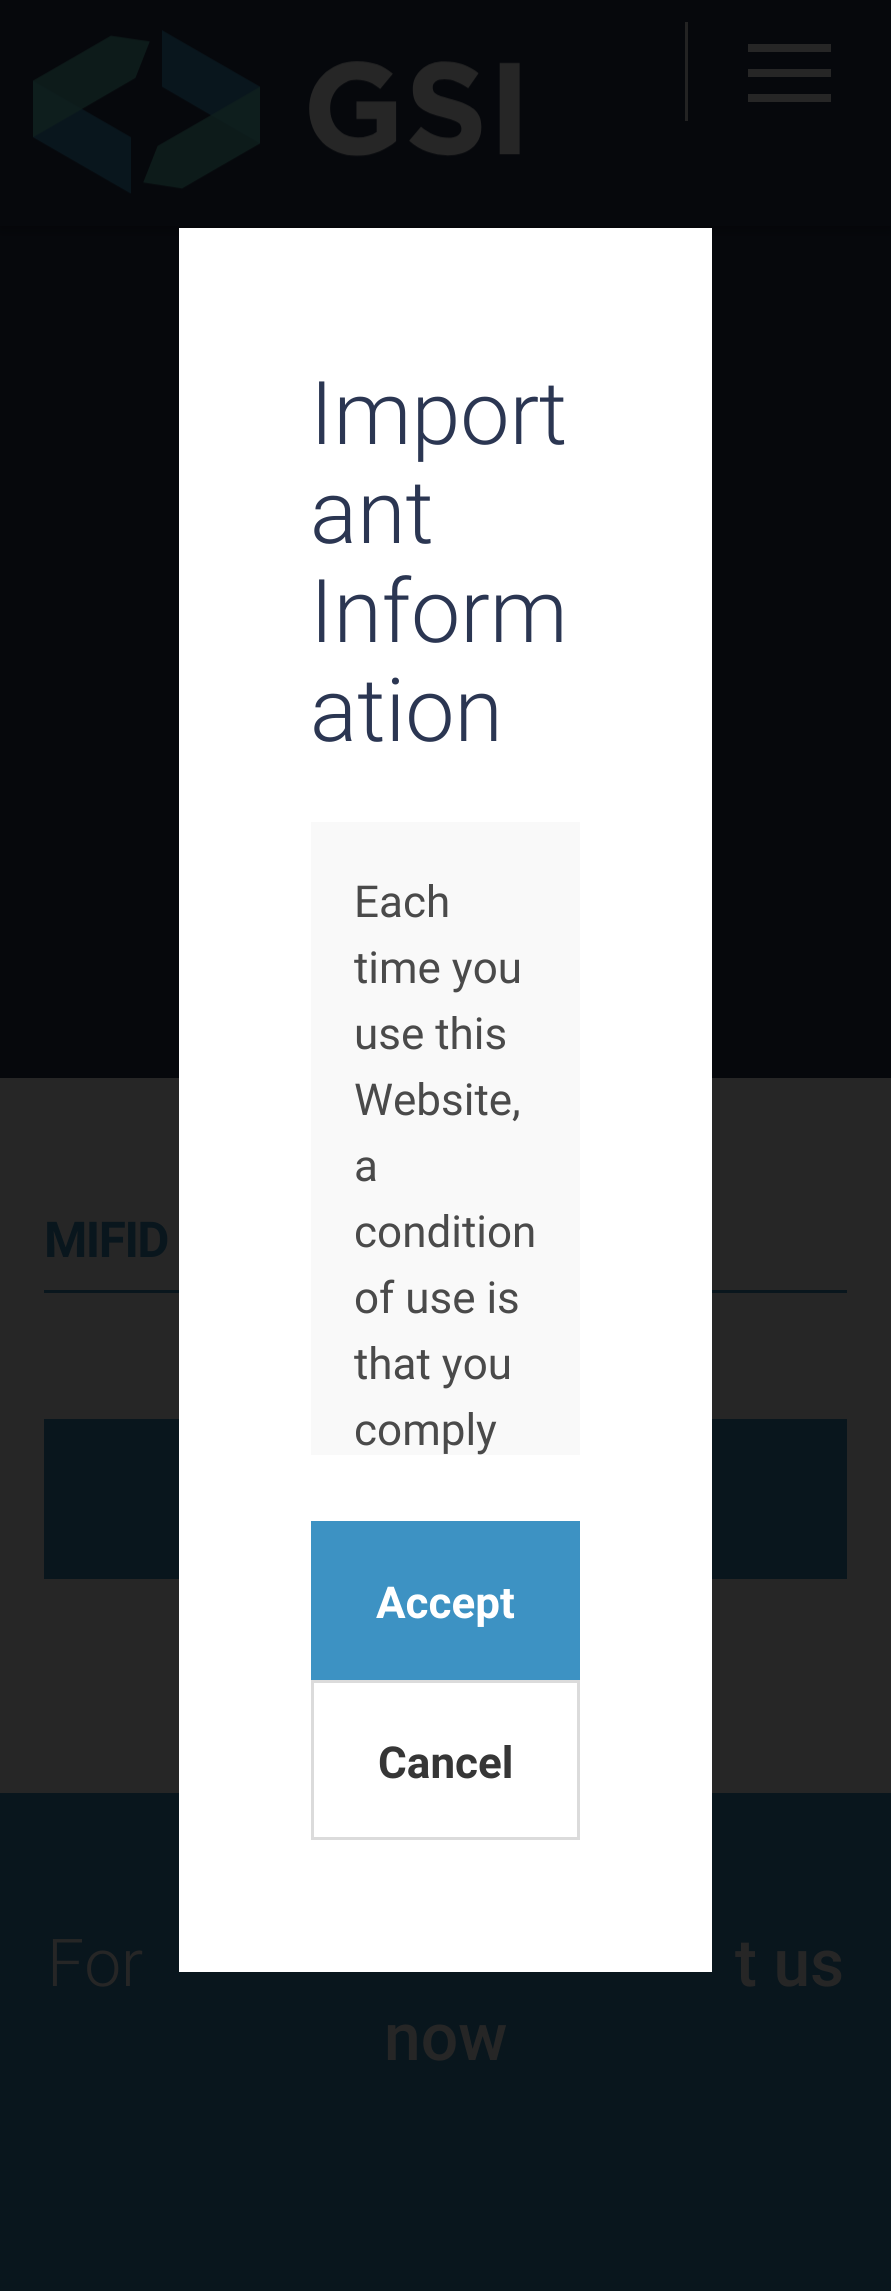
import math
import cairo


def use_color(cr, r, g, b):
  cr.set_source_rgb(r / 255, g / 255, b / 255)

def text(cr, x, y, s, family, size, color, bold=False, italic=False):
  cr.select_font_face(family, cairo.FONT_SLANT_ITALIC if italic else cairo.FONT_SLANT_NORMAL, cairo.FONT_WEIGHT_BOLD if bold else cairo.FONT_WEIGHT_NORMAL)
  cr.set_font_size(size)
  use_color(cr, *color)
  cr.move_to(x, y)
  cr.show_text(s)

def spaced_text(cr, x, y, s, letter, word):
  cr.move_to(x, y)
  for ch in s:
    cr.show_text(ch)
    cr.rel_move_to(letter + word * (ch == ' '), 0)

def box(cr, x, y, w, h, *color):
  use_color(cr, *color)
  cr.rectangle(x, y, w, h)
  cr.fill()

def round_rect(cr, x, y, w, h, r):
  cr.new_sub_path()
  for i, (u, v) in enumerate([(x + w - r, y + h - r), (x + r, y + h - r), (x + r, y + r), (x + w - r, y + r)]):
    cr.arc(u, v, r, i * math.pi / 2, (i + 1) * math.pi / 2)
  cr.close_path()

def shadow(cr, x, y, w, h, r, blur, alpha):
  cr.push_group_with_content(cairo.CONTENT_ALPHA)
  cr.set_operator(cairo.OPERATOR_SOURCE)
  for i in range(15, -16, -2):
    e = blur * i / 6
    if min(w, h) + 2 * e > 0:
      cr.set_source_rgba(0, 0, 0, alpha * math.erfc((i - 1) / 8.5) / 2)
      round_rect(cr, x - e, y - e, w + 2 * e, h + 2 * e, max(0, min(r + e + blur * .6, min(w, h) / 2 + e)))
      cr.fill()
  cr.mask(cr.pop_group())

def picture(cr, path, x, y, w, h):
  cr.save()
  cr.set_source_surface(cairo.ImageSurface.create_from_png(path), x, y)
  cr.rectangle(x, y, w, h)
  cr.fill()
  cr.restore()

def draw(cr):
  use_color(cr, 38, 38, 38)
  cr.paint()
  box(cr, 0, 226, 891, 852, 6, 8, 12)
  use_color(cr, 0, 0, 0)
  shadow(cr, 0, 3, 891, 225, 0, 7, 0.4)
  box(cr, 0, 0, 891, 226, 6, 8, 12)
  picture(cr, "img_01.png", 33, 30, 487, 164)
  box(cr, 685, 22, 3, 99, 35, 35, 35)
  box(cr, 748, 44, 83, 8, 38, 38, 38)
  box(cr, 748, 69, 83, 8, 38, 38, 38)
  box(cr, 748, 94, 83, 8, 38, 38, 38)
  box(cr, 44, 1290, 803, 3, 9, 22, 29)
  box(cr, 44, 1419, 803, 160, 9, 22, 29)
  box(cr, 0, 1793, 891, 498, 9, 22, 29)
  box(cr, 179, 228, 533, 1744, 255, 255, 255)
  box(cr, 311, 822, 269, 633, 249, 249, 249)
  box(cr, 311, 1521, 269, 159, 61, 146, 195)
  cr.rectangle(312.5, 1681.5, 266, 157)
  use_color(cr, 219, 219, 219)
  cr.set_line_width(3)
  cr.stroke()
  cr.select_font_face("Roboto", cairo.FONT_SLANT_NORMAL, cairo.FONT_WEIGHT_BOLD)
  cr.set_font_size(49.5)
  use_color(cr, 9, 22, 29)
  spaced_text(cr, 44, 1257, "MIFID", -1.5, 0)
  text(cr, 310, 444, "Import", "Roboto Light", 88, (43, 54, 82))
  text(cr, 310, 543, "ant", "Roboto Light", 88, (43, 54, 82))
  text(cr, 310, 642, "Inform", "Roboto Light", 88, (43, 54, 82))
  text(cr, 310, 741, "ation", "Roboto Light", 88, (43, 54, 82))
  text(cr, 354, 917, "Each", "Roboto", 44, (74, 74, 74))
  text(cr, 354, 983, "time you", "Roboto", 44, (74, 74, 74))
  text(cr, 354, 1049, "use this", "Roboto", 44, (74, 74, 74))
  text(cr, 354, 1115, "Website,", "Roboto", 44, (74, 74, 74))
  text(cr, 354, 1181, "a", "Roboto", 44, (74, 74, 74))
  text(cr, 354, 1247, "condition", "Roboto", 44, (74, 74, 74))
  text(cr, 354, 1313, "of use is", "Roboto", 44, (74, 74, 74))
  text(cr, 354, 1379, "that you", "Roboto", 44, (74, 74, 74))
  text(cr, 354, 1445, "comply", "Roboto", 44, (74, 74, 74))
  text(cr, 376, 1618, "Accept", "Roboto", 44, (255, 255, 255), bold=True)
  text(cr, 378, 1778, "Cancel", "Roboto", 44, (54, 54, 54), bold=True)
  text(cr, 47, 1986, "For", "Roboto Light", 66, (38, 38, 38))
  text(cr, 735, 1986, "t us", "Roboto Medium", 66, (38, 38, 38))
  text(cr, 384, 2060, "now", "Roboto Medium", 66, (38, 38, 38))


surface = cairo.ImageSurface(cairo.FORMAT_RGB24, 891, 2291)
cr = cairo.Context(surface)
options = cairo.FontOptions()
options.set_hint_metrics(cairo.HINT_METRICS_OFF)
options.set_hint_style(cairo.HINT_STYLE_NONE)
cr.set_font_options(options)
cr.set_miter_limit(4)
draw(cr)
surface.write_to_png("out.png")
